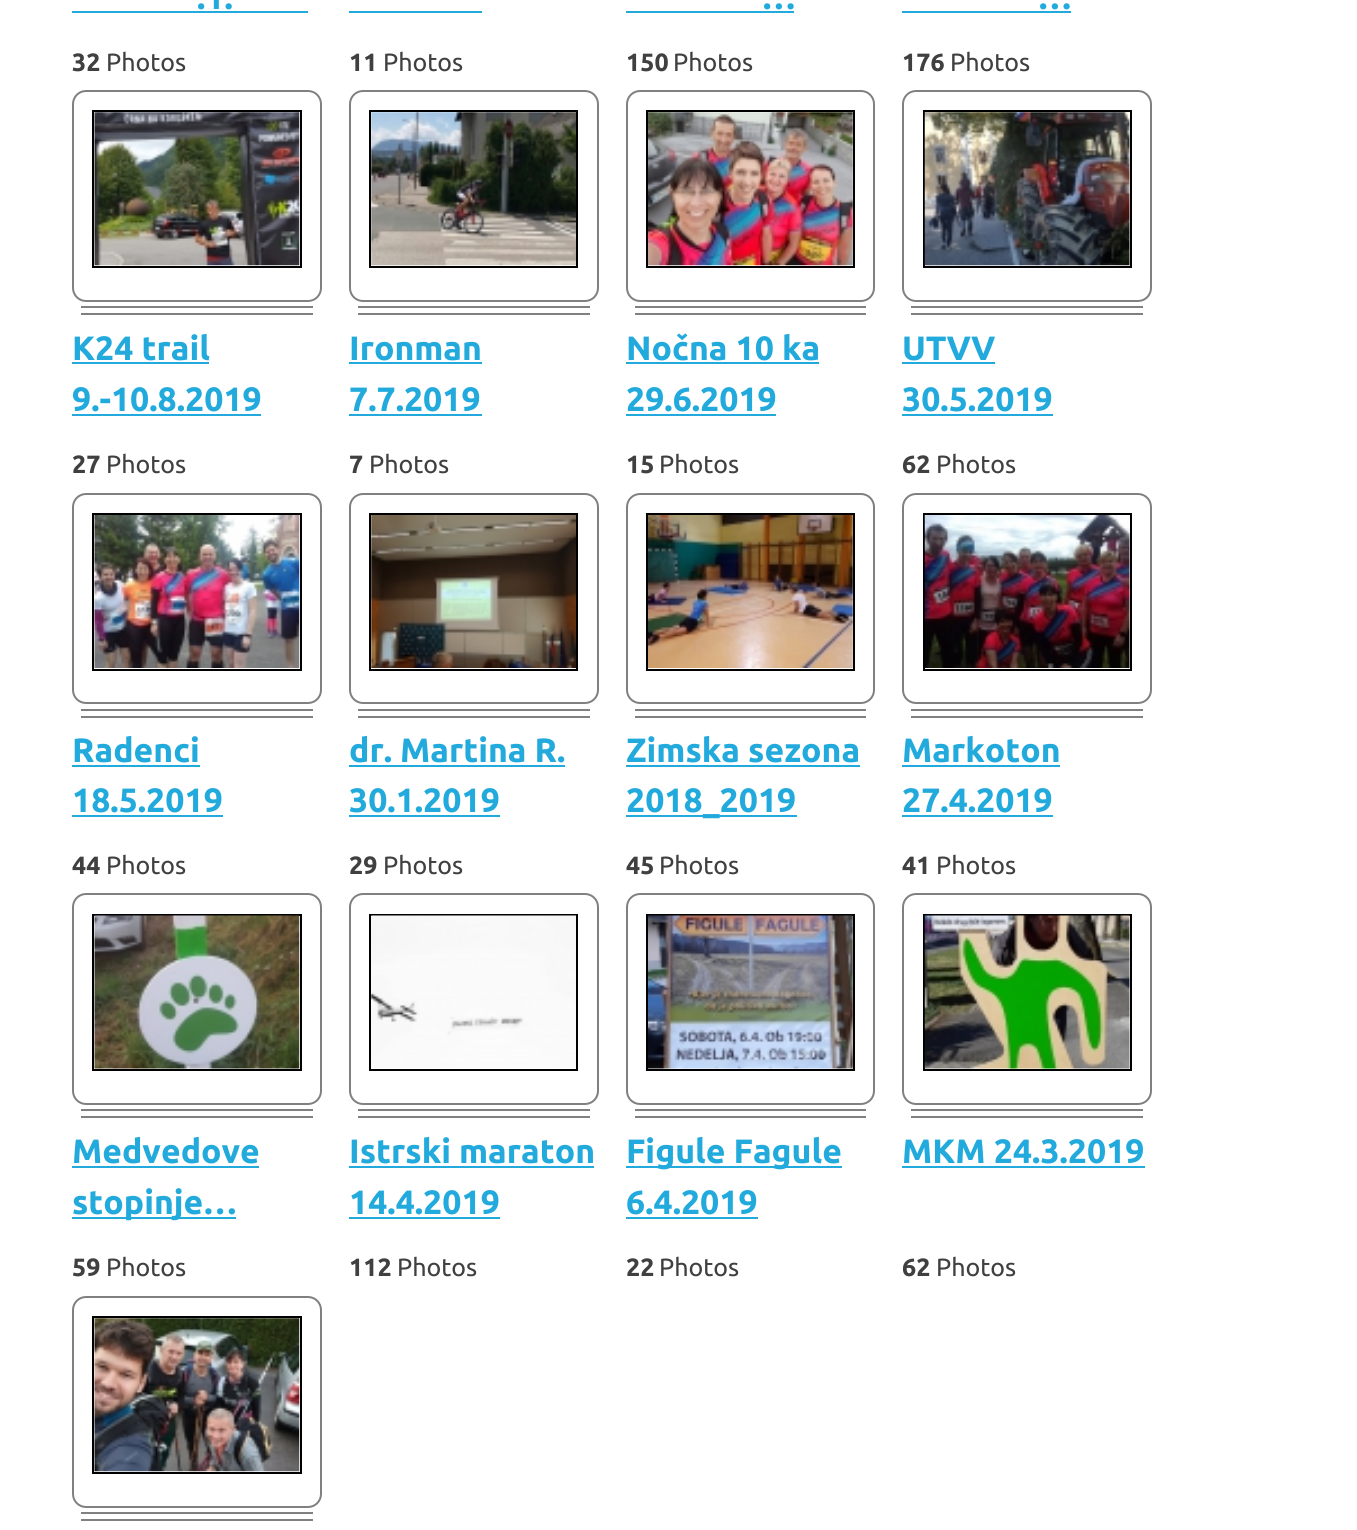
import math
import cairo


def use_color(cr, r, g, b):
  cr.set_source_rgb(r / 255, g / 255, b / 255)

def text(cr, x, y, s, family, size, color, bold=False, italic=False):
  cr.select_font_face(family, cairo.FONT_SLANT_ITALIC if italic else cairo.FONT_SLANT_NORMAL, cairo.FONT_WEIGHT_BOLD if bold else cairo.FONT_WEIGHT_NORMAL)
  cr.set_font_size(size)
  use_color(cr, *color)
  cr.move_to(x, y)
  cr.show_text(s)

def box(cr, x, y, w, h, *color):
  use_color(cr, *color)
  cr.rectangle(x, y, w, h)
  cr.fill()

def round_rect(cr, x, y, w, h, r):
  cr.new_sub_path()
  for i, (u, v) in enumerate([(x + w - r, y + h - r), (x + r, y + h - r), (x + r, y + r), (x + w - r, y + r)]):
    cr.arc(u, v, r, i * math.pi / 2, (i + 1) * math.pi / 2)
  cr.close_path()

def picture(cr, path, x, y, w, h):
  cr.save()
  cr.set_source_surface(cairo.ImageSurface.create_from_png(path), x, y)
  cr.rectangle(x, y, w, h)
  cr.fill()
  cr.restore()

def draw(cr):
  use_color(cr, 255, 255, 255)
  cr.paint()
  box(cr, 72, 11, 236, 2, 34, 170, 221)
  box(cr, 349, 11, 133, 2, 34, 170, 221)
  box(cr, 626, 11, 168, 2, 34, 170, 221)
  box(cr, 902, 11, 169, 2, 34, 170, 221)
  round_rect(cr, 73, 91, 248, 210, 13)
  use_color(cr, 128, 128, 128)
  cr.stroke()
  cr.rectangle(93, 111, 208, 156)
  use_color(cr, 0, 0, 0)
  cr.stroke()
  picture(cr, "img_01.png", 94, 112, 206, 154)
  box(cr, 81, 306, 232, 2, 128, 128, 128)
  box(cr, 81, 313, 232, 2, 128, 128, 128)
  box(cr, 72, 362, 137, 2, 34, 170, 221)
  box(cr, 72, 414, 189, 2, 34, 170, 221)
  round_rect(cr, 350, 91, 248, 210, 13)
  use_color(cr, 128, 128, 128)
  cr.stroke()
  cr.rectangle(370, 111, 207, 156)
  use_color(cr, 0, 0, 0)
  cr.stroke()
  picture(cr, "img_02.png", 371, 112, 205, 154)
  box(cr, 358, 306, 232, 2, 128, 128, 128)
  box(cr, 358, 313, 232, 2, 128, 128, 128)
  box(cr, 349, 362, 133, 2, 34, 170, 221)
  box(cr, 349, 414, 133, 2, 34, 170, 221)
  round_rect(cr, 627, 91, 247, 210, 13)
  use_color(cr, 128, 128, 128)
  cr.stroke()
  cr.rectangle(647, 111, 207, 156)
  use_color(cr, 0, 0, 0)
  cr.stroke()
  picture(cr, "img_03.png", 648, 112, 205, 154)
  box(cr, 635, 306, 231, 2, 128, 128, 128)
  box(cr, 635, 313, 231, 2, 128, 128, 128)
  box(cr, 626, 362, 193, 2, 34, 170, 221)
  box(cr, 626, 414, 150, 2, 34, 170, 221)
  round_rect(cr, 903, 91, 248, 210, 13)
  use_color(cr, 128, 128, 128)
  cr.stroke()
  cr.rectangle(924, 111, 207, 156)
  use_color(cr, 0, 0, 0)
  cr.stroke()
  picture(cr, "img_04.png", 924, 112, 206, 154)
  box(cr, 911, 306, 232, 2, 128, 128, 128)
  box(cr, 911, 313, 232, 2, 128, 128, 128)
  box(cr, 902, 362, 93, 2, 34, 170, 221)
  box(cr, 902, 414, 151, 2, 34, 170, 221)
  round_rect(cr, 73, 494, 248, 209, 13)
  use_color(cr, 128, 128, 128)
  cr.stroke()
  cr.rectangle(93, 514, 208, 156)
  use_color(cr, 0, 0, 0)
  cr.stroke()
  picture(cr, "img_05.png", 94, 515, 206, 153)
  box(cr, 81, 709, 232, 2, 128, 128, 128)
  box(cr, 81, 716, 232, 2, 128, 128, 128)
  box(cr, 72, 765, 128, 2, 34, 170, 221)
  box(cr, 72, 815, 151, 2, 34, 170, 221)
  round_rect(cr, 350, 494, 248, 209, 13)
  use_color(cr, 128, 128, 128)
  cr.stroke()
  cr.rectangle(370, 514, 207, 156)
  use_color(cr, 0, 0, 0)
  cr.stroke()
  picture(cr, "img_06.png", 371, 515, 205, 153)
  box(cr, 358, 709, 232, 2, 128, 128, 128)
  box(cr, 358, 716, 232, 2, 128, 128, 128)
  box(cr, 349, 765, 216, 2, 34, 170, 221)
  box(cr, 349, 815, 151, 2, 34, 170, 221)
  round_rect(cr, 627, 494, 247, 209, 13)
  use_color(cr, 128, 128, 128)
  cr.stroke()
  cr.rectangle(647, 514, 207, 156)
  use_color(cr, 0, 0, 0)
  cr.stroke()
  picture(cr, "img_07.png", 648, 515, 205, 153)
  box(cr, 635, 709, 231, 2, 128, 128, 128)
  box(cr, 635, 716, 231, 2, 128, 128, 128)
  box(cr, 626, 765, 234, 2, 34, 170, 221)
  box(cr, 626, 815, 171, 2, 34, 170, 221)
  round_rect(cr, 903, 494, 248, 209, 13)
  use_color(cr, 128, 128, 128)
  cr.stroke()
  cr.rectangle(924, 514, 207, 156)
  use_color(cr, 0, 0, 0)
  cr.stroke()
  picture(cr, "img_08.png", 924, 515, 206, 153)
  box(cr, 911, 709, 232, 2, 128, 128, 128)
  box(cr, 911, 716, 232, 2, 128, 128, 128)
  box(cr, 902, 765, 158, 2, 34, 170, 221)
  box(cr, 902, 815, 151, 2, 34, 170, 221)
  round_rect(cr, 73, 894, 248, 210, 13)
  use_color(cr, 128, 128, 128)
  cr.stroke()
  cr.rectangle(93, 915, 208, 155)
  use_color(cr, 0, 0, 0)
  cr.stroke()
  picture(cr, "img_09.png", 94, 915, 206, 154)
  box(cr, 81, 1109, 232, 2, 128, 128, 128)
  box(cr, 81, 1116, 232, 2, 128, 128, 128)
  box(cr, 72, 1166, 187, 2, 34, 170, 221)
  box(cr, 72, 1217, 164, 2, 34, 170, 221)
  round_rect(cr, 350, 894, 248, 210, 13)
  use_color(cr, 128, 128, 128)
  cr.stroke()
  cr.rectangle(370, 915, 207, 155)
  use_color(cr, 0, 0, 0)
  cr.stroke()
  picture(cr, "img_10.png", 371, 915, 205, 153)
  box(cr, 358, 1109, 232, 2, 128, 128, 128)
  box(cr, 358, 1116, 232, 2, 128, 128, 128)
  box(cr, 349, 1166, 245, 2, 34, 170, 221)
  box(cr, 349, 1217, 151, 2, 34, 170, 221)
  round_rect(cr, 627, 894, 247, 210, 13)
  use_color(cr, 128, 128, 128)
  cr.stroke()
  cr.rectangle(647, 915, 207, 155)
  use_color(cr, 0, 0, 0)
  cr.stroke()
  picture(cr, "img_11.png", 648, 915, 205, 154)
  box(cr, 635, 1109, 231, 2, 128, 128, 128)
  box(cr, 635, 1116, 231, 2, 128, 128, 128)
  box(cr, 626, 1166, 216, 2, 34, 170, 221)
  box(cr, 626, 1217, 132, 2, 34, 170, 221)
  round_rect(cr, 903, 894, 248, 210, 13)
  use_color(cr, 128, 128, 128)
  cr.stroke()
  cr.rectangle(924, 915, 207, 155)
  use_color(cr, 0, 0, 0)
  cr.stroke()
  picture(cr, "img_12.png", 924, 915, 206, 154)
  box(cr, 911, 1109, 232, 2, 128, 128, 128)
  box(cr, 911, 1116, 232, 2, 128, 128, 128)
  box(cr, 902, 1166, 243, 2, 34, 170, 221)
  round_rect(cr, 73, 1297, 248, 210, 13)
  use_color(cr, 128, 128, 128)
  cr.stroke()
  cr.rectangle(93, 1317, 208, 156)
  use_color(cr, 0, 0, 0)
  cr.stroke()
  picture(cr, "img_13.png", 94, 1318, 206, 154)
  box(cr, 81, 1512, 232, 2, 128, 128, 128)
  box(cr, 81, 1519, 232, 2, 128, 128, 128)
  text(cr, 197, 9, ".1.", "Ubuntu", 33.75, (34, 170, 221), bold=True)
  text(cr, 72, 71, "32", "Ubuntu", 25, (64, 64, 64), bold=True)
  text(cr, 106, 71, "Photos", "Ubuntu", 25, (64, 64, 64))
  text(cr, 349, 71, "11", "Ubuntu", 25, (64, 64, 64), bold=True)
  text(cr, 383, 71, "Photos", "Ubuntu", 25, (64, 64, 64))
  text(cr, 762, 9, "…", "Ubuntu", 33.75, (34, 170, 221), bold=True)
  text(cr, 626, 71, "150", "Ubuntu", 25, (64, 64, 64), bold=True)
  text(cr, 673, 71, "Photos", "Ubuntu", 25, (64, 64, 64))
  text(cr, 1038, 9, "…", "Ubuntu", 33.75, (34, 170, 221), bold=True)
  text(cr, 902, 71, "176", "Ubuntu", 25, (64, 64, 64), bold=True)
  text(cr, 950, 71, "Photos", "Ubuntu", 25, (64, 64, 64))
  text(cr, 72, 360, "K24 trail", "Ubuntu", 33.75, (34, 170, 221), bold=True)
  text(cr, 72, 411, "9.-10.8.2019", "Ubuntu", 33.75, (34, 170, 221), bold=True)
  text(cr, 72, 473, "27", "Ubuntu", 25, (64, 64, 64), bold=True)
  text(cr, 106, 473, "Photos", "Ubuntu", 25, (64, 64, 64))
  text(cr, 349, 360, "Ironman", "Ubuntu", 33.75, (34, 170, 221), bold=True)
  text(cr, 349, 411, "7.7.2019", "Ubuntu", 33.75, (34, 170, 221), bold=True)
  text(cr, 349, 473, "7", "Ubuntu", 25, (64, 64, 64), bold=True)
  text(cr, 369, 473, "Photos", "Ubuntu", 25, (64, 64, 64))
  text(cr, 626, 360, "Nočna 10 ka", "Ubuntu", 33.75, (34, 170, 221), bold=True)
  text(cr, 626, 411, "29.6.2019", "Ubuntu", 33.75, (34, 170, 221), bold=True)
  text(cr, 626, 473, "15", "Ubuntu", 25, (64, 64, 64), bold=True)
  text(cr, 659, 473, "Photos", "Ubuntu", 25, (64, 64, 64))
  text(cr, 902, 360, "UTVV", "Ubuntu", 33.75, (34, 170, 221), bold=True)
  text(cr, 902, 411, "30.5.2019", "Ubuntu", 33.75, (34, 170, 221), bold=True)
  text(cr, 902, 473, "62", "Ubuntu", 25, (64, 64, 64), bold=True)
  text(cr, 936, 473, "Photos", "Ubuntu", 25, (64, 64, 64))
  text(cr, 72, 762, "Radenci", "Ubuntu", 33.75, (34, 170, 221), bold=True)
  text(cr, 72, 812, "18.5.2019", "Ubuntu", 33.75, (34, 170, 221), bold=True)
  text(cr, 72, 874, "44", "Ubuntu", 25, (64, 64, 64), bold=True)
  text(cr, 106, 874, "Photos", "Ubuntu", 25, (64, 64, 64))
  text(cr, 349, 762, "dr. Martina R.", "Ubuntu", 33.75, (34, 170, 221), bold=True)
  text(cr, 349, 812, "30.1.2019", "Ubuntu", 33.75, (34, 170, 221), bold=True)
  text(cr, 349, 874, "29", "Ubuntu", 25, (64, 64, 64), bold=True)
  text(cr, 383, 874, "Photos", "Ubuntu", 25, (64, 64, 64))
  text(cr, 626, 762, "Zimska sezona", "Ubuntu", 33.75, (34, 170, 221), bold=True)
  text(cr, 626, 812, "2018_2019", "Ubuntu", 33.75, (34, 170, 221), bold=True)
  text(cr, 626, 874, "45", "Ubuntu", 25, (64, 64, 64), bold=True)
  text(cr, 659, 874, "Photos", "Ubuntu", 25, (64, 64, 64))
  text(cr, 902, 762, "Markoton", "Ubuntu", 33.75, (34, 170, 221), bold=True)
  text(cr, 902, 812, "27.4.2019", "Ubuntu", 33.75, (34, 170, 221), bold=True)
  text(cr, 902, 874, "41", "Ubuntu", 25, (64, 64, 64), bold=True)
  text(cr, 936, 874, "Photos", "Ubuntu", 25, (64, 64, 64))
  text(cr, 72, 1163, "Medvedove", "Ubuntu", 33.75, (34, 170, 221), bold=True)
  text(cr, 72, 1214, "stopinje…", "Ubuntu", 33.75, (34, 170, 221), bold=True)
  text(cr, 72, 1276, "59", "Ubuntu", 25, (64, 64, 64), bold=True)
  text(cr, 106, 1276, "Photos", "Ubuntu", 25, (64, 64, 64))
  text(cr, 349, 1163, "Istrski maraton", "Ubuntu", 33.75, (34, 170, 221), bold=True)
  text(cr, 349, 1214, "14.4.2019", "Ubuntu", 33.75, (34, 170, 221), bold=True)
  text(cr, 349, 1276, "112", "Ubuntu", 25, (64, 64, 64), bold=True)
  text(cr, 397, 1276, "Photos", "Ubuntu", 25, (64, 64, 64))
  text(cr, 626, 1163, "Figule Fagule", "Ubuntu", 33.75, (34, 170, 221), bold=True)
  text(cr, 626, 1214, "6.4.2019", "Ubuntu", 33.75, (34, 170, 221), bold=True)
  text(cr, 626, 1276, "22", "Ubuntu", 25, (64, 64, 64), bold=True)
  text(cr, 659, 1276, "Photos", "Ubuntu", 25, (64, 64, 64))
  text(cr, 902, 1163, "MKM 24.3.2019", "Ubuntu", 33.75, (34, 170, 221), bold=True)
  text(cr, 902, 1276, "62", "Ubuntu", 25, (64, 64, 64), bold=True)
  text(cr, 936, 1276, "Photos", "Ubuntu", 25, (64, 64, 64))


surface = cairo.ImageSurface(cairo.FORMAT_RGB24, 1357, 1530)
cr = cairo.Context(surface)
options = cairo.FontOptions()
options.set_hint_metrics(cairo.HINT_METRICS_OFF)
options.set_hint_style(cairo.HINT_STYLE_NONE)
cr.set_font_options(options)
cr.set_miter_limit(4)
draw(cr)
surface.write_to_png("out.png")
